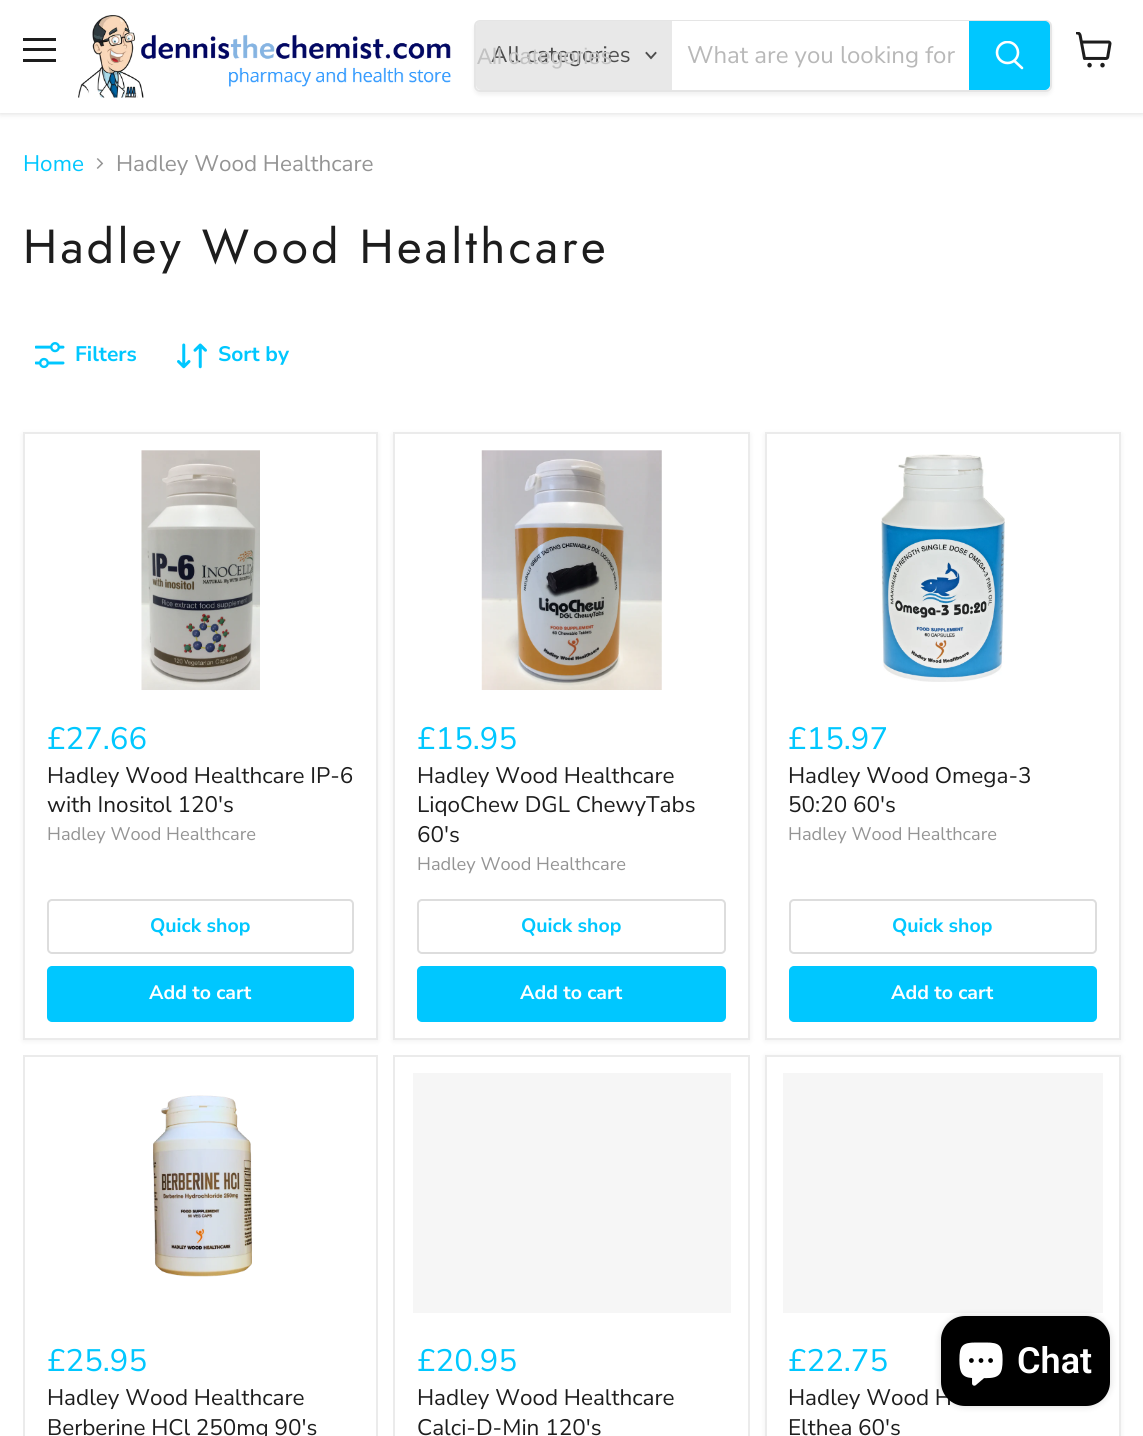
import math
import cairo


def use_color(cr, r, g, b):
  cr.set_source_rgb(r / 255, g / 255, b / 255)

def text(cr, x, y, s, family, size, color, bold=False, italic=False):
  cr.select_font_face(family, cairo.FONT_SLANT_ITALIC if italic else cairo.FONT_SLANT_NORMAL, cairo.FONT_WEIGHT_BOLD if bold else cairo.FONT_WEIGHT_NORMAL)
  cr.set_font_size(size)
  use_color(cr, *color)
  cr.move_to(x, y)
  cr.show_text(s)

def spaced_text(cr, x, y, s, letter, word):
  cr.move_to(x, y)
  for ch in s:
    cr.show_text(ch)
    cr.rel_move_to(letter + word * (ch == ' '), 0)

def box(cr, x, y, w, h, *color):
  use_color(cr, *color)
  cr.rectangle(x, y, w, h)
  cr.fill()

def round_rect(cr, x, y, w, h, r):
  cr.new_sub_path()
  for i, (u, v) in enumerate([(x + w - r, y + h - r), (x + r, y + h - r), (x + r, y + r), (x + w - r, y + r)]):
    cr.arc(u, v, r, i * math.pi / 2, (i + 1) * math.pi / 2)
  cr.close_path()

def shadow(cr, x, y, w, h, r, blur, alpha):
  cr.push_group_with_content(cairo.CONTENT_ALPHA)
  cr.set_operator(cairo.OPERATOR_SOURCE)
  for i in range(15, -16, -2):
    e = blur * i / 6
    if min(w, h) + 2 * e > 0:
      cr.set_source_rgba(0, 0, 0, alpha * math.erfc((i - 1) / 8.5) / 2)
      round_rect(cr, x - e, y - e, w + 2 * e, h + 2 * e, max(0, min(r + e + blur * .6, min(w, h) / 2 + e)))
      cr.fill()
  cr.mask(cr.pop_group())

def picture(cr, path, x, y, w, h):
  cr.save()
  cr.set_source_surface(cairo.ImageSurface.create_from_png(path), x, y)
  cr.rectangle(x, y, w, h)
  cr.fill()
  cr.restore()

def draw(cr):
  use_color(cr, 255, 255, 255)
  cr.paint()
  use_color(cr, 128, 128, 128)
  shadow(cr, 0, 2, 1143, 112, 0, 3, 0.25)
  box(cr, 0, 0, 1143, 113, 255, 255, 255)
  box(cr, 23, 38, 33, 3, 29, 29, 29)
  box(cr, 23, 48, 33, 3, 29, 29, 29)
  box(cr, 23, 59, 33, 3, 29, 29, 29)
  picture(cr, "img_01.png", 78, 15, 373, 83)
  cr.save()
  cr.set_fill_rule(cairo.FILL_RULE_EVEN_ODD)
  cr.new_path()
  cr.move_to(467, 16)
  cr.line_to(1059, 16)
  cr.line_to(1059, 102)
  cr.line_to(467, 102)
  cr.close_path()
  cr.move_to(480, 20)
  cr.line_to(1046, 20)
  cr.curve_to(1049.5, 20, 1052, 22.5, 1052, 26)
  cr.line_to(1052, 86)
  cr.curve_to(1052, 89.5, 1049.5, 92, 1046, 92)
  cr.line_to(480, 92)
  cr.curve_to(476.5, 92, 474, 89.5, 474, 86)
  cr.line_to(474, 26)
  cr.curve_to(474, 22.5, 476.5, 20, 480, 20)
  cr.close_path()
  cr.clip()
  use_color(cr, 128, 128, 128)
  shadow(cr, 474, 23, 578, 72, 6, 2, 0.11)
  cr.restore()
  round_rect(cr, 475, 21, 576, 70, 5)
  cr.set_source_rgba(0.502, 0.502, 0.502, 0.2)
  cr.stroke()
  use_color(cr, 232, 232, 232)
  cr.new_path()
  cr.move_to(481, 21)
  cr.line_to(672, 21)
  cr.line_to(672, 90)
  cr.line_to(481, 90)
  cr.curve_to(478, 90, 476, 88, 476, 85)
  cr.line_to(476, 26)
  cr.curve_to(476, 23, 478, 21, 481, 21)
  cr.close_path()
  cr.fill()
  cr.new_path()
  cr.move_to(651, 58)
  cr.line_to(655.5, 53)
  cr.move_to(651, 58)
  cr.line_to(646.5, 53)
  use_color(cr, 77, 77, 77)
  cr.set_line_width(1.9)
  cr.set_line_cap(cairo.LINE_CAP_SQUARE)
  cr.stroke()
  box(cr, 672, 21, 297, 1, 255, 255, 255)
  use_color(cr, 0, 199, 255)
  cr.new_path()
  cr.move_to(970, 22)
  cr.line_to(1045, 22)
  cr.curve_to(1047, 22, 1049, 24, 1049, 26)
  cr.line_to(1049, 85)
  cr.curve_to(1049, 87, 1047, 89, 1045, 89)
  cr.line_to(970, 89)
  cr.close_path()
  cr.fill_preserve()
  cr.set_line_width(2)
  cr.set_line_cap(cairo.LINE_CAP_BUTT)
  cr.stroke()
  cr.new_path()
  cr.move_to(1022, 68)
  cr.line_to(1014.5, 61)
  use_color(cr, 255, 255, 255)
  cr.set_line_width(2.6)
  cr.set_line_cap(cairo.LINE_CAP_ROUND)
  cr.stroke()
  cr.save()
  cr.rectangle(995, 41, 30, 31)
  cr.clip()
  cr.arc(1007.5, 52.5, 10.5, 0, 2 * math.pi)
  cr.set_line_cap(cairo.LINE_CAP_BUTT)
  cr.stroke()
  cr.restore()
  picture(cr, "img_02.png", 1076, 32, 36, 36)
  picture(cr, "img_03.png", 96, 158, 8, 11)
  picture(cr, "img_04.png", 35, 342, 30, 27)
  picture(cr, "img_05.png", 177, 343, 30, 26)
  use_color(cr, 128, 128, 128)
  shadow(cr, 23, 434, 355, 607, 0, 3, 0.11)
  use_color(cr, 255, 255, 255)
  cr.rectangle(24, 433, 353, 606)
  cr.fill_preserve()
  use_color(cr, 235, 235, 235)
  cr.set_line_width(2)
  cr.set_line_cap(cairo.LINE_CAP_BUTT)
  cr.stroke()
  picture(cr, "img_06.png", 141, 450, 119, 240)
  round_rect(cr, 48, 900, 305, 53, 4)
  use_color(cr, 221, 221, 221)
  cr.stroke()
  use_color(cr, 0, 199, 255)
  round_rect(cr, 48, 967, 305, 54, 4)
  cr.fill_preserve()
  cr.stroke()
  use_color(cr, 128, 128, 128)
  shadow(cr, 393, 434, 357, 607, 0, 3, 0.11)
  use_color(cr, 255, 255, 255)
  cr.rectangle(394, 433, 355, 606)
  cr.fill_preserve()
  use_color(cr, 235, 235, 235)
  cr.stroke()
  picture(cr, "img_07.png", 481, 450, 181, 240)
  round_rect(cr, 418, 900, 307, 53, 4)
  use_color(cr, 221, 221, 221)
  cr.stroke()
  use_color(cr, 0, 199, 255)
  round_rect(cr, 418, 967, 307, 54, 4)
  cr.fill_preserve()
  cr.stroke()
  use_color(cr, 128, 128, 128)
  shadow(cr, 765, 434, 356, 607, 0, 3, 0.11)
  use_color(cr, 255, 255, 255)
  cr.rectangle(766, 433, 354, 606)
  cr.fill_preserve()
  use_color(cr, 235, 235, 235)
  cr.stroke()
  picture(cr, "img_08.png", 881, 454, 124, 228)
  round_rect(cr, 790, 900, 306, 53, 4)
  use_color(cr, 221, 221, 221)
  cr.stroke()
  use_color(cr, 0, 199, 255)
  round_rect(cr, 790, 967, 306, 54, 4)
  cr.fill_preserve()
  cr.stroke()
  cr.rectangle(24, 1056, 353, 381)
  use_color(cr, 235, 235, 235)
  cr.stroke()
  picture(cr, "img_09.png", 153, 1095, 99, 182)
  cr.rectangle(394, 1056, 355, 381)
  cr.stroke()
  box(cr, 413, 1073, 318, 240, 246, 246, 246)
  use_color(cr, 128, 128, 128)
  shadow(cr, 765, 1056, 356, 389, 0, 3, 0.11)
  use_color(cr, 255, 255, 255)
  cr.rectangle(766, 1056, 354, 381)
  cr.fill_preserve()
  use_color(cr, 235, 235, 235)
  cr.stroke()
  box(cr, 783, 1073, 320, 240, 246, 246, 246)
  use_color(cr, 0, 0, 0)
  shadow(cr, 941, 1316, 169, 90, 24, 4, 0.15)
  text(cr, 491, 62, "All categories", "Nunito Sans", 22.5, (77, 77, 77))
  text(cr, 477, 64, "All categories", "Liberation Sans", 22.5, (194, 194, 194))
  text(cr, 687, 63, "What are you looking for", "Nunito Sans", 24, (184, 184, 184))
  text(cr, 23, 171, "Home", "Nunito Sans", 22.5, (0, 199, 255))
  text(cr, 116, 171, "Hadley Wood Healthcare", "Nunito Sans", 22.5, (148, 148, 148))
  cr.select_font_face("Jost")
  cr.set_font_size(47.75)
  use_color(cr, 29, 29, 29)
  spaced_text(cr, 23, 263, "Hadley Wood Healthcare", 3.35, 0)
  text(cr, 75, 361, "Filters", "Nunito Sans", 21, (0, 199, 255), bold=True)
  text(cr, 218, 361, "Sort by", "Nunito Sans", 21, (0, 199, 255), bold=True)
  text(cr, 47, 749, "£27.66", "Nunito Sans", 31, (0, 199, 255))
  text(cr, 47, 783, "Hadley Wood Healthcare IP-6", "Nunito Sans", 22.5, (29, 29, 29))
  text(cr, 47, 812, "with Inositol 120's", "Nunito Sans", 22.5, (29, 29, 29))
  text(cr, 47, 840, "Hadley Wood Healthcare", "Nunito Sans", 18.25, (148, 148, 148))
  text(cr, 150, 932, "Quick shop", "Nunito Sans", 19.5, (0, 199, 255), bold=True)
  text(cr, 149, 999, "Add to cart", "Nunito Sans", 19.5, (255, 255, 255), bold=True)
  text(cr, 417, 749, "£15.95", "Nunito Sans", 31, (0, 199, 255))
  text(cr, 417, 783, "Hadley Wood Healthcare", "Nunito Sans", 22.5, (29, 29, 29))
  text(cr, 417, 812, "LiqoChew DGL ChewyTabs", "Nunito Sans", 22.5, (29, 29, 29))
  text(cr, 417, 842, "60's", "Nunito Sans", 22.5, (29, 29, 29))
  text(cr, 417, 870, "Hadley Wood Healthcare", "Nunito Sans", 18.25, (148, 148, 148))
  text(cr, 521, 932, "Quick shop", "Nunito Sans", 19.5, (0, 199, 255), bold=True)
  text(cr, 520, 999, "Add to cart", "Nunito Sans", 19.5, (255, 255, 255), bold=True)
  text(cr, 788, 749, "£15.97", "Nunito Sans", 31, (0, 199, 255))
  text(cr, 788, 783, "Hadley Wood Omega-3", "Nunito Sans", 22.5, (29, 29, 29))
  text(cr, 788, 812, "50:20 60's", "Nunito Sans", 22.5, (29, 29, 29))
  text(cr, 788, 840, "Hadley Wood Healthcare", "Nunito Sans", 18.25, (148, 148, 148))
  text(cr, 892, 932, "Quick shop", "Nunito Sans", 19.5, (0, 199, 255), bold=True)
  text(cr, 891, 999, "Add to cart", "Nunito Sans", 19.5, (255, 255, 255), bold=True)
  text(cr, 47, 1371, "£25.95", "Nunito Sans", 31, (0, 199, 255))
  text(cr, 47, 1405, "Hadley Wood Healthcare", "Nunito Sans", 22.5, (29, 29, 29))
  text(cr, 47, 1435, "Berberine HCl 250mg 90's", "Nunito Sans", 22.5, (29, 29, 29))
  text(cr, 417, 1371, "£20.95", "Nunito Sans", 31, (0, 199, 255))
  text(cr, 417, 1405, "Hadley Wood Healthcare", "Nunito Sans", 22.5, (29, 29, 29))
  text(cr, 417, 1435, "Calci-D-Min 120's", "Nunito Sans", 22.5, (29, 29, 29))
  text(cr, 788, 1371, "£22.75", "Nunito Sans", 31, (0, 199, 255))
  text(cr, 788, 1405, "Hadley Wood H", "Nunito Sans", 22.5, (29, 29, 29))
  text(cr, 788, 1435, "Elthea 60's", "Nunito Sans", 22.5, (29, 29, 29))
  use_color(cr, 0, 0, 0)
  round_rect(cr, 941, 1316, 169, 90, 24)
  cr.fill()
  picture(cr, "img_10.png", 959, 1342, 44, 44)
  text(cr, 1017, 1373, "Chat", "Roboto SemiBold", 36, (255, 255, 255))


surface = cairo.ImageSurface(cairo.FORMAT_RGB24, 1143, 1436)
cr = cairo.Context(surface)
options = cairo.FontOptions()
options.set_hint_metrics(cairo.HINT_METRICS_OFF)
options.set_hint_style(cairo.HINT_STYLE_NONE)
cr.set_font_options(options)
cr.set_miter_limit(4)
draw(cr)
surface.write_to_png("out.png")
